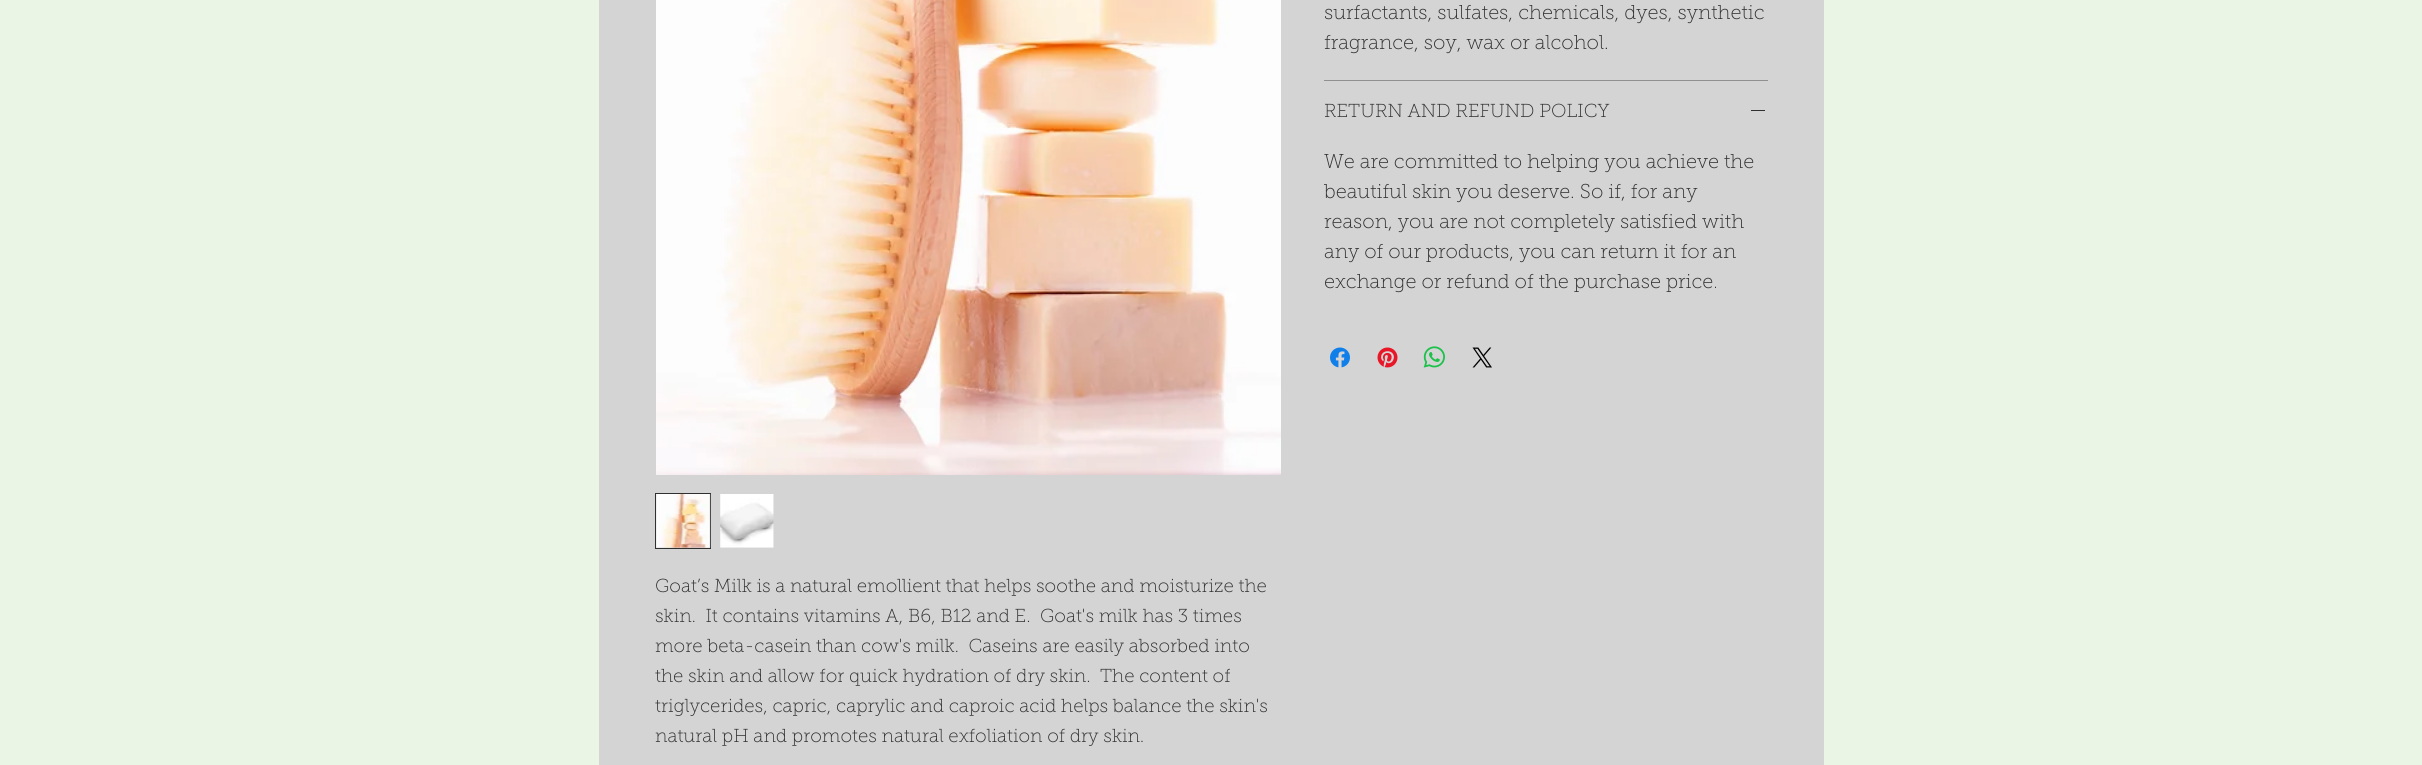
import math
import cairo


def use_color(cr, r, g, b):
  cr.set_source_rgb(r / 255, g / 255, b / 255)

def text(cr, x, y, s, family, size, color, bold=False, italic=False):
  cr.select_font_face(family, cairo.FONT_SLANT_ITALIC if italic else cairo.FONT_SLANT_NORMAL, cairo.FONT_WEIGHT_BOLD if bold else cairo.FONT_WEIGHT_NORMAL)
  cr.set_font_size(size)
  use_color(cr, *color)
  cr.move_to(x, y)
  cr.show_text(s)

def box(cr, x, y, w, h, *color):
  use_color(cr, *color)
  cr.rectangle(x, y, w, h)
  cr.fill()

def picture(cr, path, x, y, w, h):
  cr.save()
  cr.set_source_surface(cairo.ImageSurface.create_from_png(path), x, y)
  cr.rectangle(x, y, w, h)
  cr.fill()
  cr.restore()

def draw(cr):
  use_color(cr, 234, 245, 230)
  cr.paint()
  box(cr, 599, 0, 1225, 765, 212, 212, 212)
  box(cr, 1324, 80, 444, 1, 144, 144, 144)
  box(cr, 1751, 110, 14, 1, 48, 48, 48)
  picture(cr, "img_01.png", 1330, 347, 20, 21)
  picture(cr, "img_02.png", 1377, 347, 21, 21)
  picture(cr, "img_03.png", 1423, 346, 22, 22)
  picture(cr, "img_04.png", 1472, 347, 20, 21)
  picture(cr, "img_05.png", 656, 0, 625, 475)
  cr.rectangle(655.5, 493.5, 55, 55)
  cr.set_line_width(1)
  cr.stroke()
  picture(cr, "img_06.png", 656, 494, 55, 54)
  picture(cr, "img_07.png", 720, 494, 54, 54)
  text(cr, 1324, 19, "surfactants, sulfates, chemicals, dyes, synthetic", "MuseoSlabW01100 Thin", 20, (48, 48, 48))
  text(cr, 1324, 49, "fragrance, soy, wax or alcohol.", "MuseoSlabW01100 Thin", 20, (48, 48, 48))
  text(cr, 1324, 117, "RETURN AND REFUND POLICY", "MuseoSlabW01100 Thin", 18.75, (48, 48, 48))
  text(cr, 1324, 168, "We are committed to helping you achieve the", "MuseoSlabW01100 Thin", 20, (48, 48, 48))
  text(cr, 1324, 198, "beautiful skin you deserve. So if, for any", "MuseoSlabW01100 Thin", 20, (48, 48, 48))
  text(cr, 1324, 228, "reason, you are not completely satisfied with", "MuseoSlabW01100 Thin", 20, (48, 48, 48))
  text(cr, 1324, 258, "any of our products, you can return it for an", "MuseoSlabW01100 Thin", 20, (48, 48, 48))
  text(cr, 1324, 288, "exchange or refund of the purchase price.", "MuseoSlabW01100 Thin", 20, (48, 48, 48))
  text(cr, 655, 592, "Goat’s Milk is a natural emollient that helps soothe and moisturize the", "MuseoSlabW01100 Thin", 18.75, (48, 48, 48))
  text(cr, 655, 622, "skin.  It contains vitamins A, B6, B12 and E.  Goat's milk has 3 times", "MuseoSlabW01100 Thin", 18.75, (48, 48, 48))
  text(cr, 655, 652, "more beta-casein than cow's milk.  Caseins are easily absorbed into", "MuseoSlabW01100 Thin", 18.75, (48, 48, 48))
  text(cr, 655, 682, "the skin and allow for quick hydration of dry skin.  The content of", "MuseoSlabW01100 Thin", 18.75, (48, 48, 48))
  text(cr, 655, 712, "triglycerides, capric, caprylic and caproic acid helps balance the skin's", "MuseoSlabW01100 Thin", 18.75, (48, 48, 48))
  text(cr, 655, 742, "natural pH and promotes natural exfoliation of dry skin.", "MuseoSlabW01100 Thin", 18.75, (48, 48, 48))


surface = cairo.ImageSurface(cairo.FORMAT_RGB24, 2422, 765)
cr = cairo.Context(surface)
options = cairo.FontOptions()
options.set_hint_metrics(cairo.HINT_METRICS_OFF)
options.set_hint_style(cairo.HINT_STYLE_NONE)
cr.set_font_options(options)
cr.set_miter_limit(4)
draw(cr)
surface.write_to_png("out.png")
